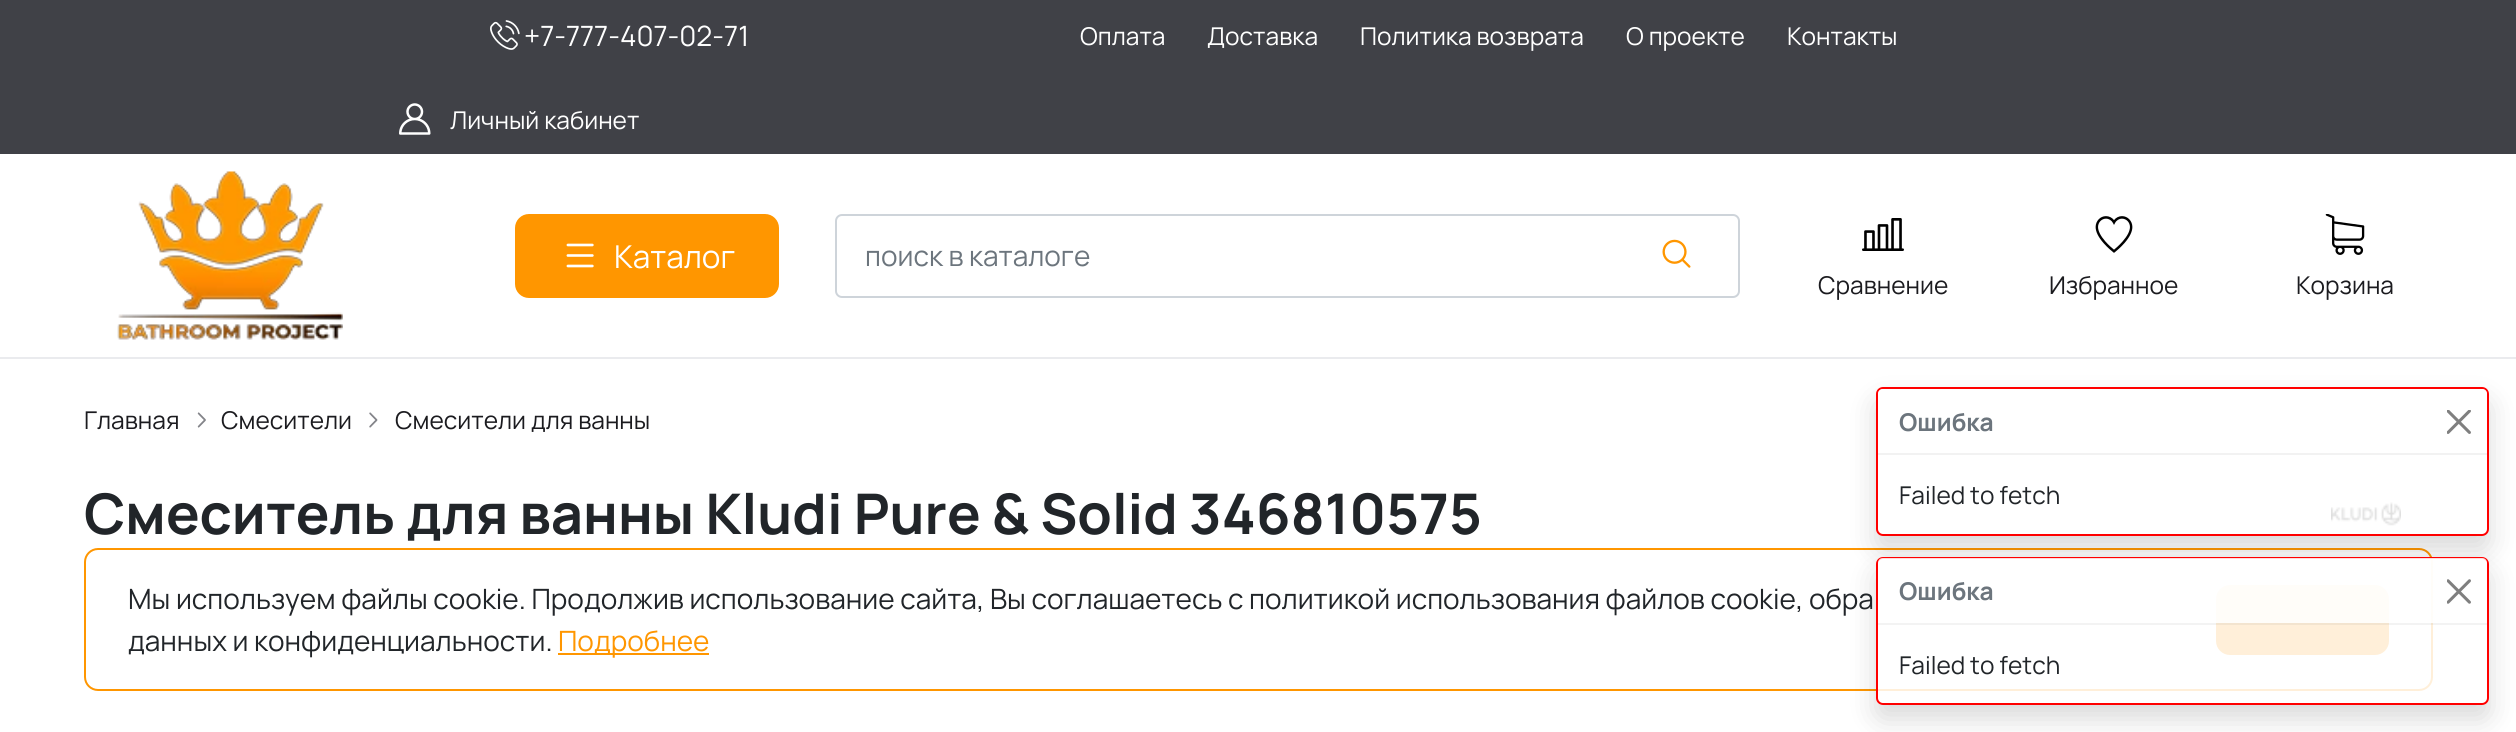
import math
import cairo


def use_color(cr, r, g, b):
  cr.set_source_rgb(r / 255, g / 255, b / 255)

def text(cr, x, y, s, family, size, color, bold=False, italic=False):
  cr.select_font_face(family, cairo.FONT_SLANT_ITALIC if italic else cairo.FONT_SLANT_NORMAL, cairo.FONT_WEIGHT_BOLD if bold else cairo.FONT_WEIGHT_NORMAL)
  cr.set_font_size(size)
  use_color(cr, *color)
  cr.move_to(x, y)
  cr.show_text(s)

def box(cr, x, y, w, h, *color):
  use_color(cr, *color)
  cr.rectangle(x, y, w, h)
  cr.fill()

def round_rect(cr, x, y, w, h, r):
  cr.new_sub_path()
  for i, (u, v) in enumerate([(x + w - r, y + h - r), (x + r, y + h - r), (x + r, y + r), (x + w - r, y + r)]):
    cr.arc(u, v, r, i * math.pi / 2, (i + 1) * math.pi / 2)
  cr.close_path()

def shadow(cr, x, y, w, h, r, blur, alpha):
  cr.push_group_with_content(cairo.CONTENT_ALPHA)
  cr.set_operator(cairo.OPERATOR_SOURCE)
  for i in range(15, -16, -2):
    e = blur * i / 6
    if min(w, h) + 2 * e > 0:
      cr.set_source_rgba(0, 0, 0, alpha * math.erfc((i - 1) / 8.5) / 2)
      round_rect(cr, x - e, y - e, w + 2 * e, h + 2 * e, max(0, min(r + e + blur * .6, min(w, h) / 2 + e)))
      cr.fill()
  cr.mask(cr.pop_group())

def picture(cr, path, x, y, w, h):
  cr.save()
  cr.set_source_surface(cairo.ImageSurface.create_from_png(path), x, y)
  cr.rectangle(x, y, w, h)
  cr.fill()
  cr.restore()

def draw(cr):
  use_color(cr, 255, 255, 255)
  cr.paint()
  box(cr, 0, 0, 2516, 154, 64, 65, 71)
  picture(cr, "img_01.png", 490, 20, 30, 30)
  picture(cr, "img_02.png", 399, 103, 32, 32)
  box(cr, 0, 357, 2516, 2, 234, 235, 238)
  picture(cr, "img_03.png", 117, 171, 226, 169)
  use_color(cr, 255, 150, 0)
  round_rect(cr, 516, 215, 262, 82, 13)
  cr.fill_preserve()
  cr.stroke()
  picture(cr, "img_04.png", 566, 243, 28, 25)
  round_rect(cr, 836, 215, 903, 82, 6)
  use_color(cr, 206, 212, 218)
  cr.stroke()
  picture(cr, "img_05.png", 1662, 239, 29, 29)
  picture(cr, "img_06.png", 1862, 218, 42, 33)
  picture(cr, "img_07.png", 2095, 216, 38, 37)
  picture(cr, "img_08.png", 2325, 214, 40, 41)
  picture(cr, "img_09.png", 197, 412, 9, 16)
  picture(cr, "img_10.png", 369, 412, 9, 16)
  picture(cr, "img_11.png", 2331, 502, 70, 24)
  round_rect(cr, 85, 549, 2347, 141, 13)
  use_color(cr, 255, 150, 0)
  cr.stroke()
  round_rect(cr, 2217, 586, 171, 68, 13)
  cr.fill_preserve()
  cr.stroke()
  cr.save()
  cr.set_fill_rule(cairo.FILL_RULE_EVEN_ODD)
  cr.new_path()
  cr.move_to(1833, 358)
  cr.line_to(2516, 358)
  cr.line_to(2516, 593)
  cr.line_to(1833, 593)
  cr.close_path()
  cr.move_to(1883, 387)
  cr.line_to(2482, 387)
  cr.curve_to(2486, 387, 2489, 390, 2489, 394)
  cr.line_to(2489, 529)
  cr.curve_to(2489, 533, 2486, 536, 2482, 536)
  cr.line_to(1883, 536)
  cr.curve_to(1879, 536, 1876, 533, 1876, 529)
  cr.line_to(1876, 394)
  cr.curve_to(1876, 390, 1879, 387, 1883, 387)
  cr.close_path()
  cr.clip()
  use_color(cr, 0, 0, 0)
  shadow(cr, 1876, 401, 613, 149, 7, 14, 0.15)
  cr.restore()
  cr.set_source_rgba(1, 1, 1, 0.85)
  round_rect(cr, 1877, 388, 611, 147, 6)
  cr.fill_preserve()
  use_color(cr, 255, 0, 0)
  cr.stroke()
  cr.set_source_rgba(1, 1, 1, 0.85)
  cr.new_path()
  cr.move_to(1883, 389)
  cr.line_to(2482, 389)
  cr.curve_to(2485, 389, 2487, 391, 2487, 394)
  cr.line_to(2487, 453)
  cr.line_to(1878, 453)
  cr.line_to(1878, 394)
  cr.curve_to(1878, 391, 1880, 389, 1883, 389)
  cr.close_path()
  cr.fill()
  box(cr, 1878, 453, 609, 2, 242, 242, 242)
  picture(cr, "img_12.png", 2447, 410, 24, 24)
  cr.save()
  cr.set_fill_rule(cairo.FILL_RULE_EVEN_ODD)
  cr.new_path()
  cr.move_to(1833, 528)
  cr.line_to(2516, 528)
  cr.line_to(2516, 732)
  cr.line_to(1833, 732)
  cr.close_path()
  cr.move_to(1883, 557)
  cr.line_to(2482, 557)
  cr.curve_to(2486, 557, 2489, 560, 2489, 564)
  cr.line_to(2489, 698)
  cr.curve_to(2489, 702, 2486, 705, 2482, 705)
  cr.line_to(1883, 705)
  cr.curve_to(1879, 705, 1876, 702, 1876, 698)
  cr.line_to(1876, 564)
  cr.curve_to(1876, 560, 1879, 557, 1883, 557)
  cr.close_path()
  cr.clip()
  use_color(cr, 0, 0, 0)
  shadow(cr, 1876, 571, 613, 148, 7, 14, 0.15)
  cr.restore()
  cr.set_source_rgba(1, 1, 1, 0.85)
  round_rect(cr, 1877, 558, 611, 146, 6)
  cr.fill_preserve()
  use_color(cr, 255, 0, 0)
  cr.stroke()
  cr.set_source_rgba(1, 1, 1, 0.85)
  cr.new_path()
  cr.move_to(1883, 558)
  cr.line_to(2482, 558)
  cr.curve_to(2485, 558, 2487, 560, 2487, 563)
  cr.line_to(2487, 623)
  cr.line_to(1878, 623)
  cr.line_to(1878, 563)
  cr.curve_to(1878, 560, 1880, 558, 1883, 558)
  cr.close_path()
  cr.fill()
  cr.set_source_rgba(0, 0, 0, 0.05)
  cr.rectangle(1878, 623, 609, 2)
  cr.fill()
  picture(cr, "img_13.png", 2447, 579, 24, 25)
  box(cr, 558, 653, 151, 2, 255, 150, 0)
  text(cr, 524, 46, "+7-777-407-02-71", "Manrope", 28, (255, 255, 255))
  text(cr, 1080, 45, "Оплата", "Manrope", 24.5, (255, 255, 255))
  text(cr, 1207, 45, "Доставка", "Manrope", 24.5, (255, 255, 255))
  text(cr, 1360, 45, "Политика возврата", "Manrope", 24.5, (255, 255, 255))
  text(cr, 1626, 45, "О проекте", "Manrope", 24.5, (255, 255, 255))
  text(cr, 1787, 45, "Контакты", "Manrope", 24.5, (255, 255, 255))
  text(cr, 450, 129, "Личный кабинет", "Manrope", 24.5, (255, 255, 255))
  text(cr, 614, 268, "Каталог", "Manrope", 31.5, (255, 255, 255))
  text(cr, 865, 266, "поиск в каталоге", "Manrope", 28, (108, 117, 125))
  text(cr, 1818, 294, "Сравнение", "Manrope", 24.5, (27, 27, 31))
  text(cr, 2049, 294, "Избранное", "Manrope", 24.5, (27, 27, 31))
  text(cr, 2296, 294, "Корзина", "Manrope", 24.5, (27, 27, 31))
  text(cr, 84, 429, "Главная", "Manrope", 24.5, (27, 27, 31))
  text(cr, 221, 429, "Смесители", "Manrope", 24.5, (27, 27, 31))
  text(cr, 395, 429, "Смесители для ванны", "Manrope", 24.5, (27, 27, 31))
  text(cr, 84, 534, "Смеситель для ванны Kludi Pure & Solid 346810575", "Manrope", 56, (33, 37, 41), bold=True)
  text(cr, 1899, 431, "Ошибка", "Manrope", 24.5, (108, 117, 125), bold=True)
  text(cr, 1899, 504, "Failed to fetch", "Manrope", 24.5, (33, 37, 41))
  text(cr, 1899, 600, "Ошибка", "Manrope", 24.5, (108, 117, 125), bold=True)
  text(cr, 1899, 674, "Failed to fetch", "Manrope", 24.5, (33, 37, 41))
  text(cr, 128, 609, "Мы используем файлы cookie. Продолжив использование сайта, Вы соглашаетесь с политикой использования файлов cookie, обра", "Manrope", 28, (33, 37, 41))
  text(cr, 128, 651, "данных и конфиденциальности.", "Manrope", 28, (33, 37, 41))
  text(cr, 558, 651, "Подробнее", "Manrope", 28, (255, 150, 0))


surface = cairo.ImageSurface(cairo.FORMAT_RGB24, 2516, 732)
cr = cairo.Context(surface)
options = cairo.FontOptions()
options.set_hint_metrics(cairo.HINT_METRICS_OFF)
options.set_hint_style(cairo.HINT_STYLE_NONE)
cr.set_font_options(options)
cr.set_miter_limit(4)
draw(cr)
surface.write_to_png("out.png")
